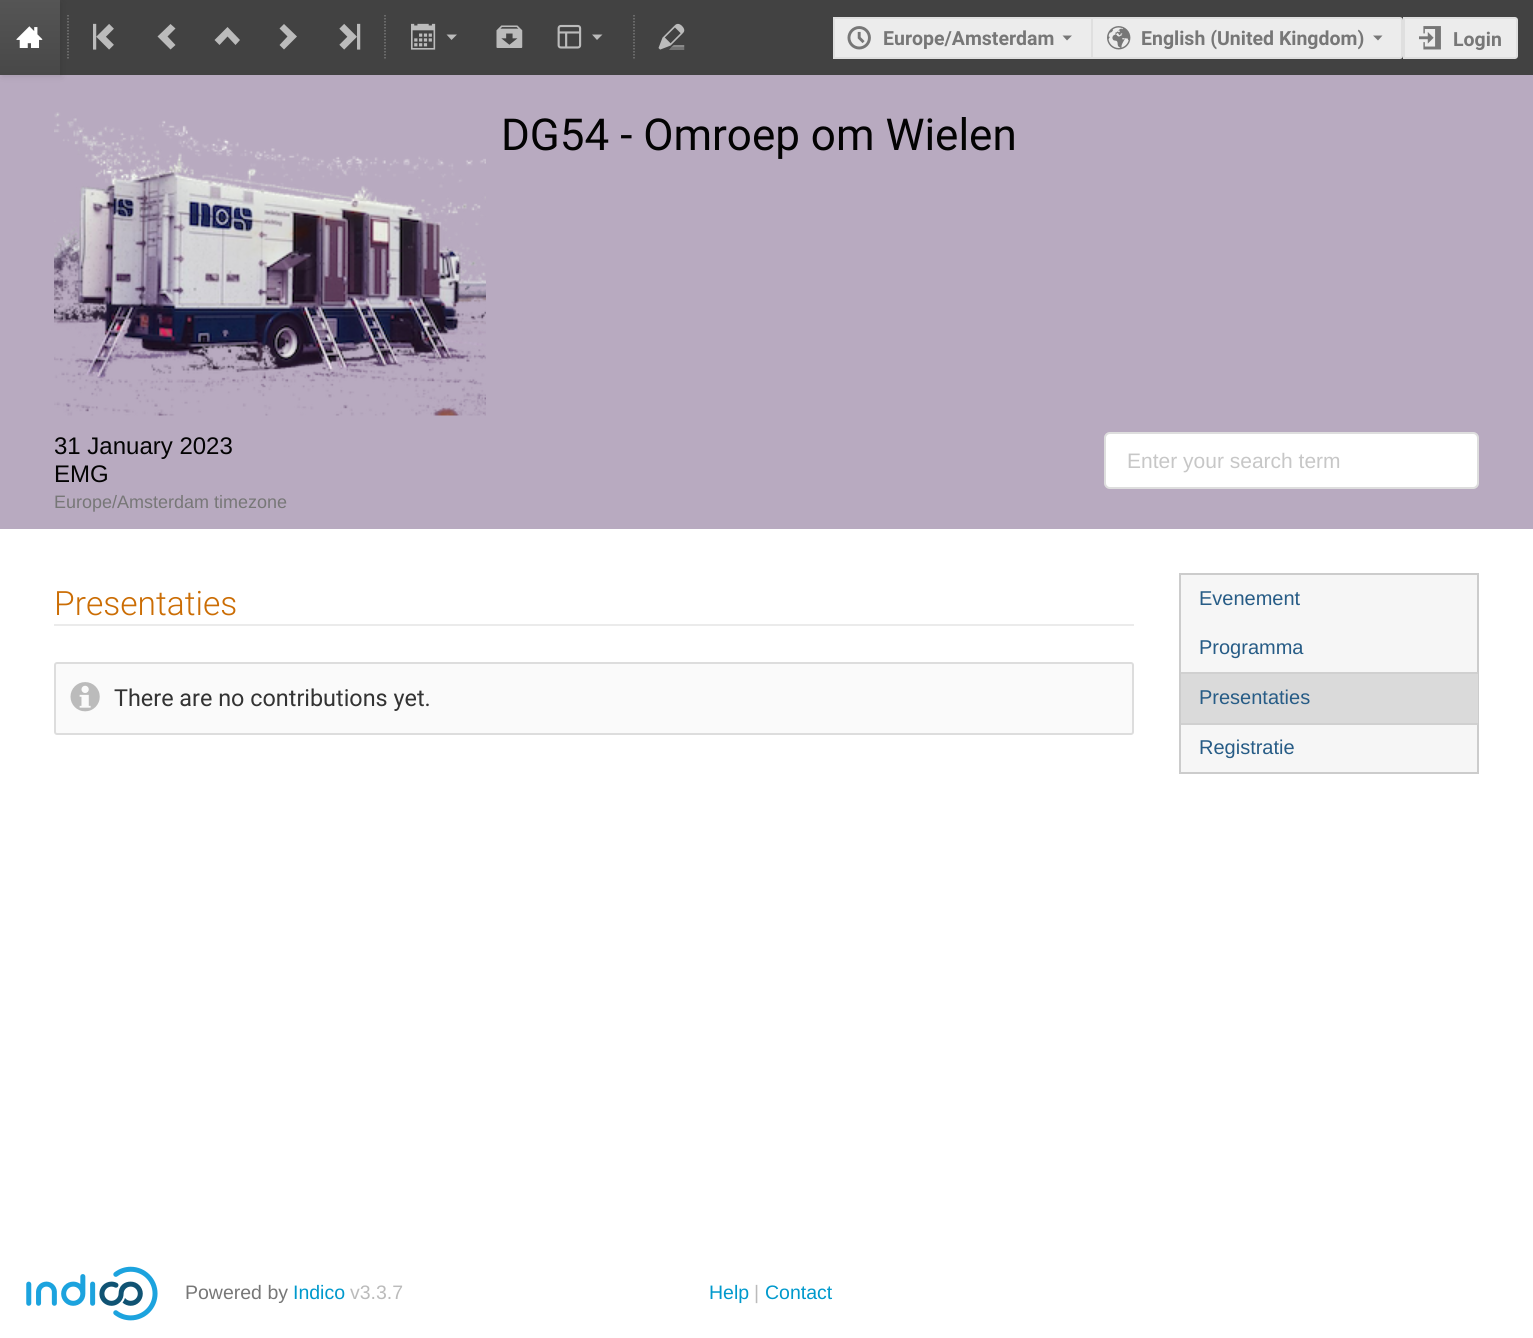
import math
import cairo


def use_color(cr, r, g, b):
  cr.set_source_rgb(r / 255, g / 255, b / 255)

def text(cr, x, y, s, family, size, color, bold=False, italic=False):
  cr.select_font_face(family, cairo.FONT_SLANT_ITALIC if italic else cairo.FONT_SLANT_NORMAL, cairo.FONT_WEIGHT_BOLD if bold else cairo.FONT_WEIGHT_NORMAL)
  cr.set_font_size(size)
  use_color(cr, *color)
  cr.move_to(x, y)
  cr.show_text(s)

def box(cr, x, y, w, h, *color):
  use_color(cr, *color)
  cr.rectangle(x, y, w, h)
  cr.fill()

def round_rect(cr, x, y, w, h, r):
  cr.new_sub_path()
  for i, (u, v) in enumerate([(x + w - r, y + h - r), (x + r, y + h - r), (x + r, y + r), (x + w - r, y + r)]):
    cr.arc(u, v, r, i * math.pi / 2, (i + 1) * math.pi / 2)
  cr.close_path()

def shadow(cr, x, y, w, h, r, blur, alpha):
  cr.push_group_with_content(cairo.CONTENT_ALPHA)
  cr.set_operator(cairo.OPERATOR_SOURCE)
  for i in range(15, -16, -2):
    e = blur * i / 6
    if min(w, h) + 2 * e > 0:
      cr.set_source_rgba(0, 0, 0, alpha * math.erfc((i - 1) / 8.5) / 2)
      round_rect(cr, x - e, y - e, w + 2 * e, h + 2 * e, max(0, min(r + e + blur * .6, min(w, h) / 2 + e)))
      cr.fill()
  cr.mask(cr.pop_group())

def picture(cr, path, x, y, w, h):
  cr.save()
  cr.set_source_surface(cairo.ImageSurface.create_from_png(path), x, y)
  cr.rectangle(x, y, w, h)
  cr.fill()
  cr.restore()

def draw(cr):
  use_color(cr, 255, 255, 255)
  cr.paint()
  box(cr, 60, 0, 1473, 75, 66, 66, 66)
  box(cr, 0, 75, 1533, 454, 184, 170, 192)
  use_color(cr, 20, 20, 20)
  shadow(cr, 2, 2, 60, 75, 0, 3, 0.1)
  gradient = cairo.LinearGradient(30, 0, 30, 75)
  gradient.add_color_stop_rgba(0, 0.333, 0.333, 0.333, 1)
  gradient.add_color_stop_rgba(1, 0.282, 0.282, 0.282, 1)
  cr.set_source(gradient)
  cr.rectangle(0, 0, 60, 75)
  cr.fill()
  picture(cr, "img_01.png", 16, 26, 27, 22)
  cr.new_path()
  cr.move_to(68, 15)
  cr.line_to(68, 60)
  use_color(cr, 119, 119, 119)
  cr.set_line_width(1.5)
  cr.set_dash([1.5, 1.5])
  cr.stroke()
  picture(cr, "img_02.png", 93, 23, 21, 27)
  use_color(cr, 187, 187, 187)
  cr.new_path()
  cr.move_to(170.5, 49.5)
  cr.line_to(175.5, 45)
  cr.line_to(167.5, 36.5)
  cr.line_to(175.5, 28.5)
  cr.line_to(170.5, 24)
  cr.line_to(157.5, 36.5)
  cr.close_path()
  cr.fill()
  cr.new_path()
  cr.move_to(214.5, 40)
  cr.line_to(219.5, 45)
  cr.line_to(227.5, 36.5)
  cr.line_to(235.5, 45)
  cr.line_to(240, 40)
  cr.line_to(227.5, 27)
  cr.close_path()
  cr.fill()
  cr.new_path()
  cr.move_to(284, 24)
  cr.line_to(279.5, 28.5)
  cr.line_to(287.5, 36.5)
  cr.line_to(279.5, 45)
  cr.line_to(284, 49.5)
  cr.line_to(297, 36.5)
  cr.close_path()
  cr.fill()
  picture(cr, "img_03.png", 339, 23, 22, 27)
  cr.new_path()
  cr.move_to(385, 15)
  cr.line_to(385, 60)
  use_color(cr, 119, 119, 119)
  cr.stroke()
  picture(cr, "img_04.png", 411, 23, 25, 27)
  use_color(cr, 187, 187, 187)
  cr.new_path()
  cr.move_to(446.5, 34.5)
  cr.line_to(451.5, 40)
  cr.line_to(457, 34.5)
  cr.close_path()
  cr.fill()
  picture(cr, "img_05.png", 496, 25, 27, 23)
  picture(cr, "img_06.png", 557, 24, 25, 25)
  cr.new_path()
  cr.move_to(592, 34.5)
  cr.line_to(597, 40)
  cr.line_to(602.5, 34.5)
  cr.close_path()
  cr.fill()
  cr.new_path()
  cr.move_to(634, 15)
  cr.line_to(634, 60)
  use_color(cr, 119, 119, 119)
  cr.stroke()
  picture(cr, "img_07.png", 658, 23, 27, 27)
  box(cr, 835, 19, 256, 38, 236, 236, 236)
  box(cr, 833, 17, 258, 2, 223, 223, 223)
  box(cr, 833, 57, 258, 2, 223, 223, 223)
  box(cr, 833, 17, 2, 42, 223, 223, 223)
  picture(cr, "img_08.png", 847, 26, 24, 24)
  use_color(cr, 119, 119, 119)
  cr.new_path()
  cr.move_to(1062.5, 35.5)
  cr.line_to(1067, 40.5)
  cr.line_to(1072, 35.5)
  cr.close_path()
  cr.fill()
  use_color(cr, 236, 236, 236)
  cr.new_path()
  cr.move_to(1092, 18)
  cr.line_to(1400, 18)
  cr.curve_to(1401, 18, 1402, 19, 1402, 20)
  cr.line_to(1402, 56)
  cr.curve_to(1402, 57, 1401, 58, 1400, 58)
  cr.line_to(1092, 58)
  cr.close_path()
  cr.fill_preserve()
  use_color(cr, 223, 223, 223)
  cr.set_line_width(2)
  cr.set_dash([])
  cr.stroke()
  picture(cr, "img_09.png", 1107, 26, 24, 24)
  use_color(cr, 119, 119, 119)
  cr.new_path()
  cr.move_to(1373, 35.5)
  cr.line_to(1378, 40.5)
  cr.line_to(1382.5, 35.5)
  cr.close_path()
  cr.fill()
  use_color(cr, 236, 236, 236)
  cr.new_path()
  cr.move_to(1404, 18)
  cr.line_to(1515, 18)
  cr.curve_to(1516, 18, 1517, 19, 1517, 20)
  cr.line_to(1517, 56)
  cr.curve_to(1517, 57, 1516, 58, 1515, 58)
  cr.line_to(1404, 58)
  cr.close_path()
  cr.fill_preserve()
  use_color(cr, 223, 223, 223)
  cr.stroke()
  picture(cr, "img_10.png", 1419, 26, 22, 24)
  picture(cr, "img_11.png", 54, 112, 432, 304)
  use_color(cr, 255, 255, 255)
  round_rect(cr, 1104, 432, 375, 57, 6)
  cr.fill()
  round_rect(cr, 1105, 433, 373, 55, 5)
  cr.set_source_rgba(0.133, 0.141, 0.149, 0.15)
  cr.stroke()
  box(cr, 54, 624, 1080, 2, 235, 235, 235)
  use_color(cr, 250, 250, 250)
  round_rect(cr, 55, 663, 1078, 71, 2)
  cr.fill_preserve()
  use_color(cr, 221, 221, 221)
  cr.stroke()
  picture(cr, "img_12.png", 70, 682, 30, 30)
  use_color(cr, 246, 246, 246)
  cr.rectangle(1180, 574, 298, 199)
  cr.fill_preserve()
  use_color(cr, 204, 204, 204)
  cr.stroke()
  box(cr, 1181, 674, 297, 49, 218, 218, 218)
  box(cr, 1181, 672, 297, 2, 208, 208, 208)
  box(cr, 1181, 723, 297, 2, 208, 208, 208)
  picture(cr, "img_13.png", 26, 1266, 132, 55)
  text(cr, 883, 45, "Europe/Amsterdam", "Roboto", 19.5, (119, 119, 119), bold=True)
  text(cr, 1141, 45, "English (United Kingdom)", "Roboto", 19.5, (119, 119, 119), bold=True)
  text(cr, 1453, 46, "Login", "Roboto", 19.5, (119, 119, 119), bold=True)
  text(cr, 501, 150, "DG54 - Omroep om Wielen", "Roboto", 44, (3, 3, 3))
  text(cr, 54, 454, "31 January 2023", "Liberation Sans", 24, (3, 3, 3))
  text(cr, 54, 482, "EMG", "Liberation Sans", 24, (3, 3, 3))
  text(cr, 54, 508, "Europe/Amsterdam timezone", "Liberation Sans", 18, (119, 119, 119))
  text(cr, 1127, 468, "Enter your search term", "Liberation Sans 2", 21, (199, 199, 199))
  text(cr, 54, 615, "Presentaties", "Roboto Light", 33.5, (203, 109, 4))
  text(cr, 114, 706, "There are no contributions yet.", "Roboto", 23.4, (51, 51, 51))
  text(cr, 1199, 605, "Evenement", "Liberation Sans 2", 20, (39, 92, 134))
  text(cr, 1199, 654, "Programma", "Liberation Sans 2", 20, (39, 92, 134))
  text(cr, 1199, 704, "Presentaties", "Liberation Sans 2", 20, (39, 92, 134))
  text(cr, 1199, 754, "Registratie", "Liberation Sans 2", 20, (39, 92, 134))
  text(cr, 185, 1299, "Powered by", "Liberation Sans", 19.5, (119, 119, 119))
  text(cr, 293, 1299, "Indico", "Liberation Sans", 19.5, (0, 153, 204))
  text(cr, 350, 1299, "v3.3.7", "Liberation Sans", 19.5, (187, 187, 187))
  text(cr, 709, 1299, "Help", "Liberation Sans", 19.5, (0, 153, 204))
  text(cr, 754, 1299, "|", "Liberation Sans", 19.5, (187, 187, 187))
  text(cr, 765, 1299, "Contact", "Liberation Sans", 19.5, (0, 153, 204))


surface = cairo.ImageSurface(cairo.FORMAT_RGB24, 1533, 1338)
cr = cairo.Context(surface)
options = cairo.FontOptions()
options.set_hint_metrics(cairo.HINT_METRICS_OFF)
options.set_hint_style(cairo.HINT_STYLE_NONE)
cr.set_font_options(options)
cr.set_miter_limit(4)
draw(cr)
surface.write_to_png("out.png")
